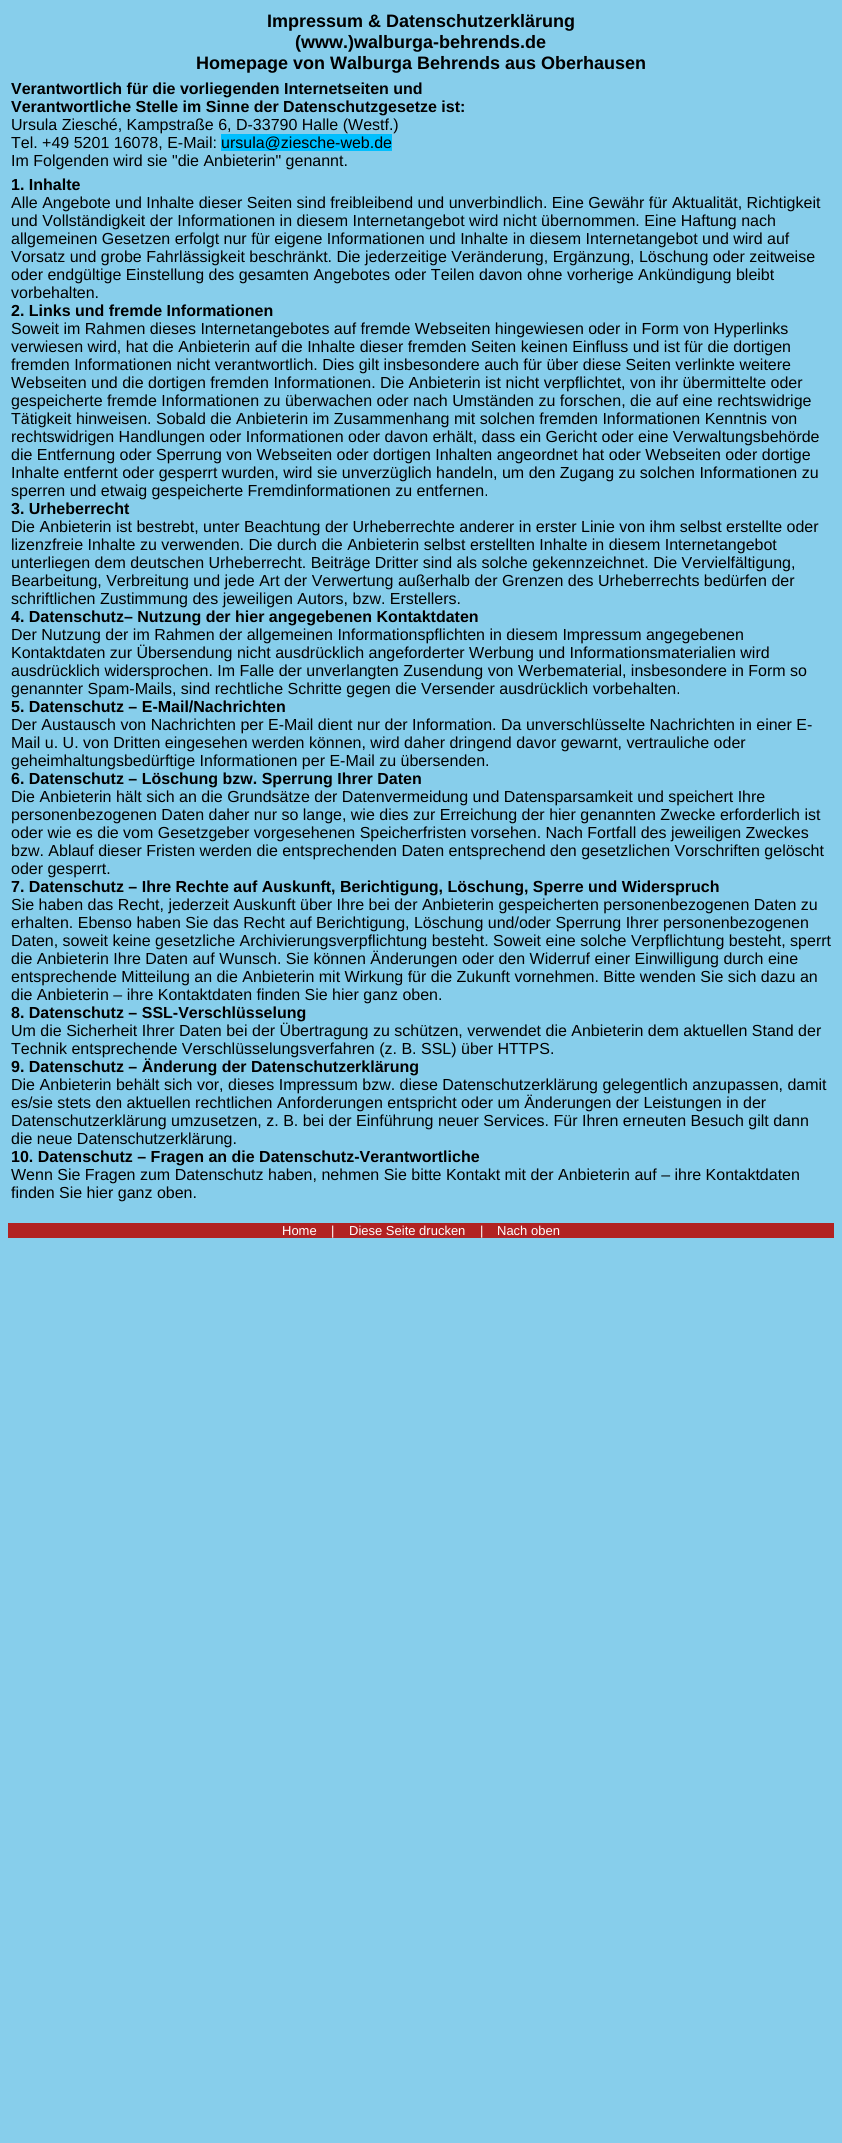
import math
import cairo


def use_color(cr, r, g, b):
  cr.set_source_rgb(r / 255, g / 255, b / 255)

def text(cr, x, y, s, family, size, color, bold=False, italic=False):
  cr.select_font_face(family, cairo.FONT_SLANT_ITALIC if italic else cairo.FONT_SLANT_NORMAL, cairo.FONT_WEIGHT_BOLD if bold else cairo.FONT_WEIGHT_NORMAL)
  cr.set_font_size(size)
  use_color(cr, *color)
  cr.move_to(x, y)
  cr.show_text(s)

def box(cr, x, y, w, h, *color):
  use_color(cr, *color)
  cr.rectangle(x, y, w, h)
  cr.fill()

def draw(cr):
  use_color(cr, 135, 206, 235)
  cr.paint()
  box(cr, 221, 134, 171, 17, 0, 191, 255)
  box(cr, 8, 1223, 826, 15, 178, 34, 34)
  text(cr, 267, 27, "Impressum & Datenschutzerklärung", "Liberation Sans", 18, (0, 0, 0), bold=True)
  text(cr, 295, 48, "(www.)walburga-behrends.de", "Liberation Sans", 18, (0, 0, 0), bold=True)
  text(cr, 196, 69, "Homepage von Walburga Behrends aus Oberhausen", "Liberation Sans", 18, (0, 0, 0), bold=True)
  text(cr, 11, 94, "Verantwortlich für die vorliegenden Internetseiten und", "Liberation Sans", 16, (0, 0, 0), bold=True)
  text(cr, 11, 112, "Verantwortliche Stelle im Sinne der Datenschutzgesetze ist:", "Liberation Sans", 16, (0, 0, 0), bold=True)
  text(cr, 11, 130, "Ursula Ziesché, Kampstraße 6, D-33790 Halle (Westf.)", "Liberation Sans", 16, (0, 0, 0))
  text(cr, 11, 148, "Tel. +49 5201 16078, E-Mail:", "Liberation Sans", 16, (0, 0, 0))
  text(cr, 221, 148, "ursula@ziesche-web.de", "Liberation Sans", 16, (0, 0, 0))
  text(cr, 11, 166, "Im Folgenden wird sie \"die Anbieterin\" genannt.", "Liberation Sans", 16, (0, 0, 0))
  text(cr, 11, 190, "1. Inhalte", "Liberation Sans", 16, (0, 0, 0), bold=True)
  text(cr, 11, 208, "Alle Angebote und Inhalte dieser Seiten sind freibleibend und unverbindlich. Eine Gewähr für Aktualität, Richtigkeit", "Liberation Sans", 16, (0, 0, 0))
  text(cr, 11, 226, "und Vollständigkeit der Informationen in diesem Internetangebot wird nicht übernommen. Eine Haftung nach", "Liberation Sans", 16, (0, 0, 0))
  text(cr, 11, 244, "allgemeinen Gesetzen erfolgt nur für eigene Informationen und Inhalte in diesem Internetangebot und wird auf", "Liberation Sans", 16, (0, 0, 0))
  text(cr, 11, 262, "Vorsatz und grobe Fahrlässigkeit beschränkt. Die jederzeitige Veränderung, Ergänzung, Löschung oder zeitweise", "Liberation Sans", 16, (0, 0, 0))
  text(cr, 11, 280, "oder endgültige Einstellung des gesamten Angebotes oder Teilen davon ohne vorherige Ankündigung bleibt", "Liberation Sans", 16, (0, 0, 0))
  text(cr, 11, 298, "vorbehalten.", "Liberation Sans", 16, (0, 0, 0))
  text(cr, 11, 316, "2. Links und fremde Informationen", "Liberation Sans", 16, (0, 0, 0), bold=True)
  text(cr, 11, 334, "Soweit im Rahmen dieses Internetangebotes auf fremde Webseiten hingewiesen oder in Form von Hyperlinks", "Liberation Sans", 16, (0, 0, 0))
  text(cr, 11, 352, "verwiesen wird, hat die Anbieterin auf die Inhalte dieser fremden Seiten keinen Einfluss und ist für die dortigen", "Liberation Sans", 16, (0, 0, 0))
  text(cr, 11, 370, "fremden Informationen nicht verantwortlich. Dies gilt insbesondere auch für über diese Seiten verlinkte weitere", "Liberation Sans", 16, (0, 0, 0))
  text(cr, 11, 388, "Webseiten und die dortigen fremden Informationen. Die Anbieterin ist nicht verpflichtet, von ihr übermittelte oder", "Liberation Sans", 16, (0, 0, 0))
  text(cr, 11, 406, "gespeicherte fremde Informationen zu überwachen oder nach Umständen zu forschen, die auf eine rechtswidrige", "Liberation Sans", 16, (0, 0, 0))
  text(cr, 11, 424, "Tätigkeit hinweisen. Sobald die Anbieterin im Zusammenhang mit solchen fremden Informationen Kenntnis von", "Liberation Sans", 16, (0, 0, 0))
  text(cr, 11, 442, "rechtswidrigen Handlungen oder Informationen oder davon erhält, dass ein Gericht oder eine Verwaltungsbehörde", "Liberation Sans", 16, (0, 0, 0))
  text(cr, 11, 460, "die Entfernung oder Sperrung von Webseiten oder dortigen Inhalten angeordnet hat oder Webseiten oder dortige", "Liberation Sans", 16, (0, 0, 0))
  text(cr, 11, 478, "Inhalte entfernt oder gesperrt wurden, wird sie unverzüglich handeln, um den Zugang zu solchen Informationen zu", "Liberation Sans", 16, (0, 0, 0))
  text(cr, 11, 496, "sperren und etwaig gespeicherte Fremdinformationen zu entfernen.", "Liberation Sans", 16, (0, 0, 0))
  text(cr, 11, 514, "3. Urheberrecht", "Liberation Sans", 16, (0, 0, 0), bold=True)
  text(cr, 11, 532, "Die Anbieterin ist bestrebt, unter Beachtung der Urheberrechte anderer in erster Linie von ihm selbst erstellte oder", "Liberation Sans", 16, (0, 0, 0))
  text(cr, 11, 550, "lizenzfreie Inhalte zu verwenden. Die durch die Anbieterin selbst erstellten Inhalte in diesem Internetangebot", "Liberation Sans", 16, (0, 0, 0))
  text(cr, 11, 568, "unterliegen dem deutschen Urheberrecht. Beiträge Dritter sind als solche gekennzeichnet. Die Vervielfältigung,", "Liberation Sans", 16, (0, 0, 0))
  text(cr, 11, 586, "Bearbeitung, Verbreitung und jede Art der Verwertung außerhalb der Grenzen des Urheberrechts bedürfen der", "Liberation Sans", 16, (0, 0, 0))
  text(cr, 11, 604, "schriftlichen Zustimmung des jeweiligen Autors, bzw. Erstellers.", "Liberation Sans", 16, (0, 0, 0))
  text(cr, 11, 622, "4. Datenschutz– Nutzung der hier angegebenen Kontaktdaten", "Liberation Sans", 16, (0, 0, 0), bold=True)
  text(cr, 11, 640, "Der Nutzung der im Rahmen der allgemeinen Informationspflichten in diesem Impressum angegebenen", "Liberation Sans", 16, (0, 0, 0))
  text(cr, 11, 658, "Kontaktdaten zur Übersendung nicht ausdrücklich angeforderter Werbung und Informationsmaterialien wird", "Liberation Sans", 16, (0, 0, 0))
  text(cr, 11, 676, "ausdrücklich widersprochen. Im Falle der unverlangten Zusendung von Werbematerial, insbesondere in Form so", "Liberation Sans", 16, (0, 0, 0))
  text(cr, 11, 694, "genannter Spam-Mails, sind rechtliche Schritte gegen die Versender ausdrücklich vorbehalten.", "Liberation Sans", 16, (0, 0, 0))
  text(cr, 11, 712, "5. Datenschutz – E-Mail/Nachrichten", "Liberation Sans", 16, (0, 0, 0), bold=True)
  text(cr, 11, 730, "Der Austausch von Nachrichten per E-Mail dient nur der Information. Da unverschlüsselte Nachrichten in einer E-", "Liberation Sans", 16, (0, 0, 0))
  text(cr, 11, 748, "Mail u. U. von Dritten eingesehen werden können, wird daher dringend davor gewarnt, vertrauliche oder", "Liberation Sans", 16, (0, 0, 0))
  text(cr, 11, 766, "geheimhaltungsbedürftige Informationen per E-Mail zu übersenden.", "Liberation Sans", 16, (0, 0, 0))
  text(cr, 11, 784, "6. Datenschutz – Löschung bzw. Sperrung Ihrer Daten", "Liberation Sans", 16, (0, 0, 0), bold=True)
  text(cr, 11, 802, "Die Anbieterin hält sich an die Grundsätze der Datenvermeidung und Datensparsamkeit und speichert Ihre", "Liberation Sans", 16, (0, 0, 0))
  text(cr, 11, 820, "personenbezogenen Daten daher nur so lange, wie dies zur Erreichung der hier genannten Zwecke erforderlich ist", "Liberation Sans", 16, (0, 0, 0))
  text(cr, 11, 838, "oder wie es die vom Gesetzgeber vorgesehenen Speicherfristen vorsehen. Nach Fortfall des jeweiligen Zweckes", "Liberation Sans", 16, (0, 0, 0))
  text(cr, 11, 856, "bzw. Ablauf dieser Fristen werden die entsprechenden Daten entsprechend den gesetzlichen Vorschriften gelöscht", "Liberation Sans", 16, (0, 0, 0))
  text(cr, 11, 874, "oder gesperrt.", "Liberation Sans", 16, (0, 0, 0))
  text(cr, 11, 892, "7. Datenschutz – Ihre Rechte auf Auskunft, Berichtigung, Löschung, Sperre und Widerspruch", "Liberation Sans", 16, (0, 0, 0), bold=True)
  text(cr, 11, 910, "Sie haben das Recht, jederzeit Auskunft über Ihre bei der Anbieterin gespeicherten personenbezogenen Daten zu", "Liberation Sans", 16, (0, 0, 0))
  text(cr, 11, 928, "erhalten. Ebenso haben Sie das Recht auf Berichtigung, Löschung und/oder Sperrung Ihrer personenbezogenen", "Liberation Sans", 16, (0, 0, 0))
  text(cr, 11, 946, "Daten, soweit keine gesetzliche Archivierungsverpflichtung besteht. Soweit eine solche Verpflichtung besteht, sperrt", "Liberation Sans", 16, (0, 0, 0))
  text(cr, 11, 964, "die Anbieterin Ihre Daten auf Wunsch. Sie können Änderungen oder den Widerruf einer Einwilligung durch eine", "Liberation Sans", 16, (0, 0, 0))
  text(cr, 11, 982, "entsprechende Mitteilung an die Anbieterin mit Wirkung für die Zukunft vornehmen. Bitte wenden Sie sich dazu an", "Liberation Sans", 16, (0, 0, 0))
  text(cr, 11, 1000, "die Anbieterin – ihre Kontaktdaten finden Sie hier ganz oben.", "Liberation Sans", 16, (0, 0, 0))
  text(cr, 11, 1018, "8. Datenschutz – SSL-Verschlüsselung", "Liberation Sans", 16, (0, 0, 0), bold=True)
  text(cr, 11, 1036, "Um die Sicherheit Ihrer Daten bei der Übertragung zu schützen, verwendet die Anbieterin dem aktuellen Stand der", "Liberation Sans", 16, (0, 0, 0))
  text(cr, 11, 1054, "Technik entsprechende Verschlüsselungsverfahren (z. B. SSL) über HTTPS.", "Liberation Sans", 16, (0, 0, 0))
  text(cr, 11, 1072, "9. Datenschutz – Änderung der Datenschutzerklärung", "Liberation Sans", 16, (0, 0, 0), bold=True)
  text(cr, 11, 1090, "Die Anbieterin behält sich vor, dieses Impressum bzw. diese Datenschutzerklärung gelegentlich anzupassen, damit", "Liberation Sans", 16, (0, 0, 0))
  text(cr, 11, 1108, "es/sie stets den aktuellen rechtlichen Anforderungen entspricht oder um Änderungen der Leistungen in der", "Liberation Sans", 16, (0, 0, 0))
  text(cr, 11, 1126, "Datenschutzerklärung umzusetzen, z. B. bei der Einführung neuer Services. Für Ihren erneuten Besuch gilt dann", "Liberation Sans", 16, (0, 0, 0))
  text(cr, 11, 1144, "die neue Datenschutzerklärung.", "Liberation Sans", 16, (0, 0, 0))
  text(cr, 11, 1162, "10. Datenschutz – Fragen an die Datenschutz-Verantwortliche", "Liberation Sans", 16, (0, 0, 0), bold=True)
  text(cr, 11, 1180, "Wenn Sie Fragen zum Datenschutz haben, nehmen Sie bitte Kontakt mit der Anbieterin auf – ihre Kontaktdaten", "Liberation Sans", 16, (0, 0, 0))
  text(cr, 11, 1198, "finden Sie hier ganz oben.", "Liberation Sans", 16, (0, 0, 0))
  text(cr, 282, 1235, "Home", "Liberation Sans", 13, (255, 255, 255))
  text(cr, 331, 1235, "|", "Liberation Sans", 13, (255, 255, 255))
  text(cr, 349, 1235, "Diese Seite drucken", "Liberation Sans", 13, (255, 255, 255))
  text(cr, 480, 1235, "|", "Liberation Sans", 13, (255, 255, 255))
  text(cr, 497, 1235, "Nach oben", "Liberation Sans", 13, (255, 255, 255))


surface = cairo.ImageSurface(cairo.FORMAT_RGB24, 842, 2143)
cr = cairo.Context(surface)
options = cairo.FontOptions()
options.set_hint_metrics(cairo.HINT_METRICS_OFF)
options.set_hint_style(cairo.HINT_STYLE_NONE)
cr.set_font_options(options)
cr.set_miter_limit(4)
draw(cr)
surface.write_to_png("out.png")
